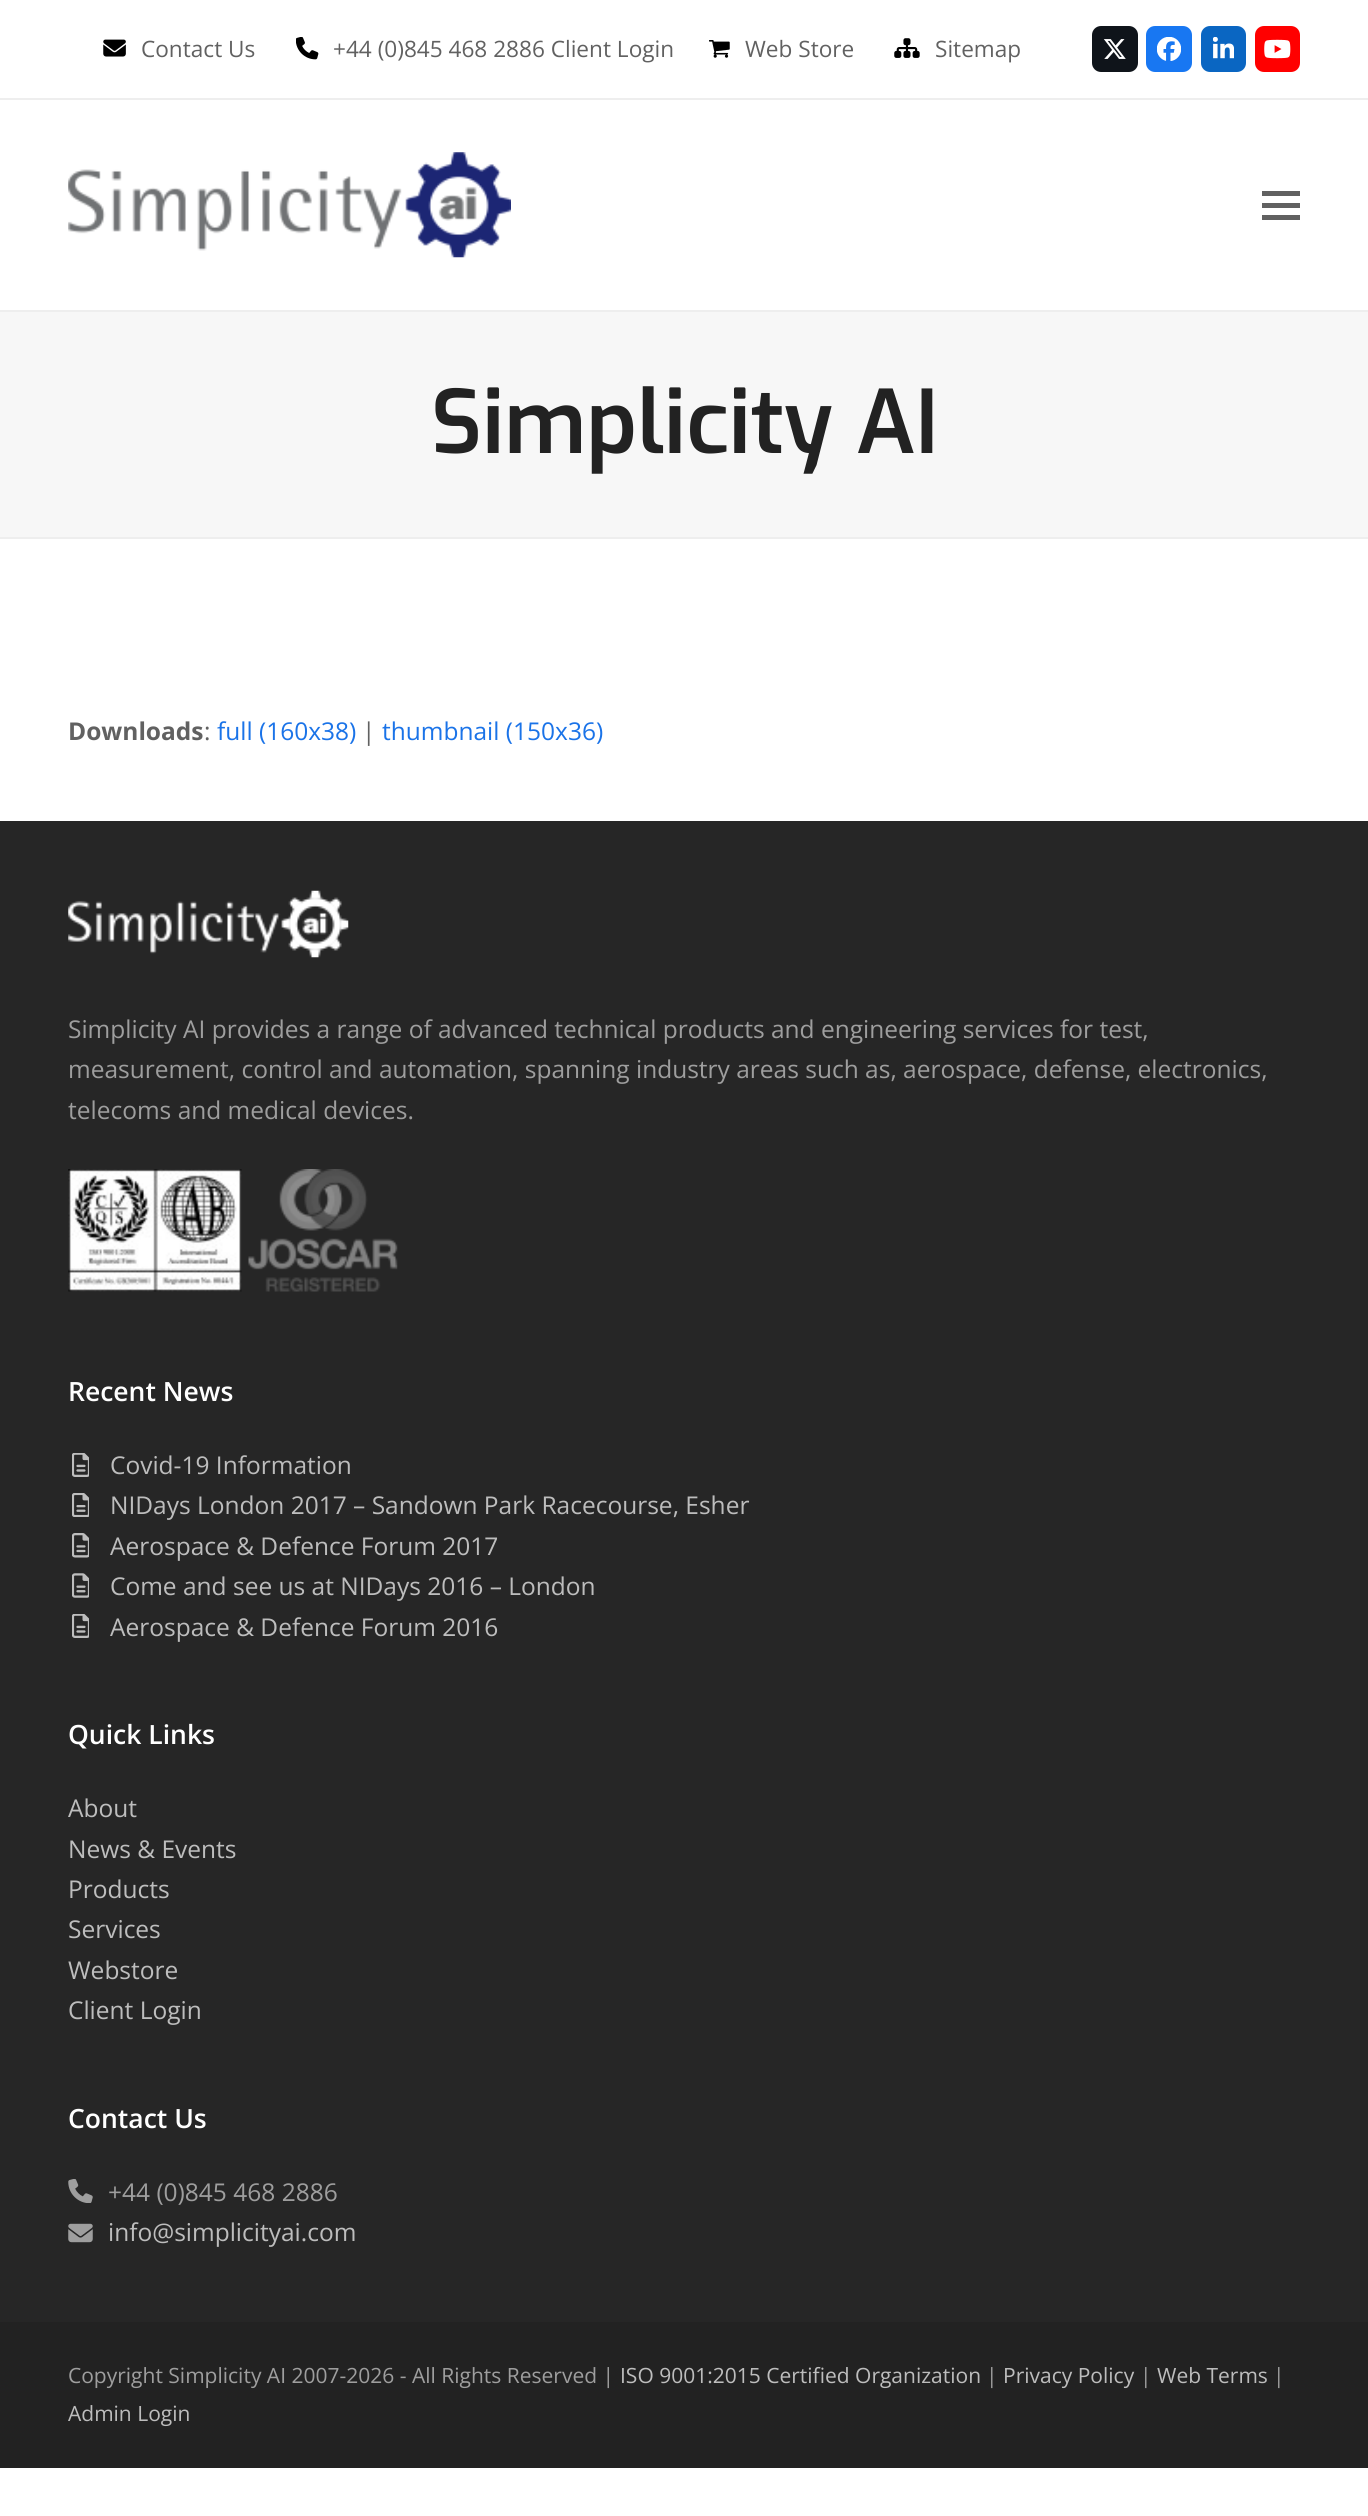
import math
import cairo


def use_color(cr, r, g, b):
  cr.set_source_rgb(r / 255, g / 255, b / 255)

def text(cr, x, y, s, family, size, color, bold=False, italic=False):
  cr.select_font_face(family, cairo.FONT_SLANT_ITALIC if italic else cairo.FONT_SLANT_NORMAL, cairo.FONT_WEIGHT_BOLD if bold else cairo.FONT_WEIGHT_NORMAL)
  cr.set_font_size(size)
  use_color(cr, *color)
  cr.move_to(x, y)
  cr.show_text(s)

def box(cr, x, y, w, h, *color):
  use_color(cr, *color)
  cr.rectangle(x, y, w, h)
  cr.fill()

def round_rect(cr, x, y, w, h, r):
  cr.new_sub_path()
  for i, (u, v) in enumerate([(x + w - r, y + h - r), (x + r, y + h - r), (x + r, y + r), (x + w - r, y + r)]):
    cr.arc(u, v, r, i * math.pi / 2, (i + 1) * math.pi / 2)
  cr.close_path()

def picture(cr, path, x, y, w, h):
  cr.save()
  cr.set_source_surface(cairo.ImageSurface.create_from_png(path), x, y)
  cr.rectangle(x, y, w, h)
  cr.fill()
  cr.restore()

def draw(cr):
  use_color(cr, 255, 255, 255)
  cr.paint()
  box(cr, 0, 98, 1368, 2, 238, 238, 238)
  picture(cr, "img_01.png", 103, 39, 23, 18)
  picture(cr, "img_02.png", 296, 37, 23, 23)
  picture(cr, "img_03.png", 709, 40, 21, 18)
  picture(cr, "img_04.png", 894, 38, 26, 20)
  use_color(cr, 15, 20, 26)
  round_rect(cr, 1092, 26, 46, 46, 9)
  cr.fill()
  picture(cr, "img_05.png", 1103, 39, 23, 20)
  use_color(cr, 24, 119, 242)
  round_rect(cr, 1146, 26, 46, 46, 9)
  cr.fill()
  picture(cr, "img_06.png", 1157, 37, 24, 24)
  use_color(cr, 10, 102, 194)
  round_rect(cr, 1201, 26, 45, 46, 9)
  cr.fill()
  picture(cr, "img_07.png", 1213, 37, 21, 22)
  use_color(cr, 255, 0, 0)
  round_rect(cr, 1255, 26, 45, 46, 9)
  cr.fill()
  picture(cr, "img_08.png", 1264, 39, 27, 20)
  picture(cr, "img_09.png", 68, 152, 443, 106)
  box(cr, 1262, 203, 38, 5, 97, 97, 97)
  box(cr, 1262, 191, 38, 5, 97, 97, 97)
  box(cr, 1262, 215, 38, 5, 97, 97, 97)
  box(cr, 0, 312, 1368, 225, 247, 247, 247)
  box(cr, 0, 310, 1368, 2, 238, 238, 238)
  box(cr, 0, 537, 1368, 2, 238, 238, 238)
  box(cr, 0, 821, 1368, 1501, 38, 38, 38)
  picture(cr, "img_10.png", 68, 890, 281, 68)
  picture(cr, "img_11.png", 68, 1169, 174, 123)
  picture(cr, "img_12.png", 248, 1169, 150, 123)
  picture(cr, "img_13.png", 72, 1453, 17, 24)
  picture(cr, "img_14.png", 72, 1493, 17, 24)
  picture(cr, "img_15.png", 72, 1533, 17, 25)
  picture(cr, "img_16.png", 72, 1573, 17, 25)
  picture(cr, "img_13.png", 72, 1614, 17, 24)
  picture(cr, "img_17.png", 68, 2179, 25, 24)
  picture(cr, "img_18.png", 68, 2223, 25, 20)
  box(cr, 0, 2322, 1368, 146, 34, 34, 34)
  text(cr, 141, 57, "Contact Us", "Open Sans", 22.6, (97, 97, 97))
  text(cr, 333, 57, "+44 (0)845 468 2886 Client Login", "Open Sans", 22.6, (97, 97, 97))
  text(cr, 745, 57, "Web Store", "Open Sans", 22.6, (97, 97, 97))
  text(cr, 935, 57, "Sitemap", "Open Sans", 22.6, (97, 97, 97))
  text(cr, 431, 453, "Simplicity AI", "Exo SemiBold", 87.5, (34, 34, 34))
  text(cr, 68, 740, "Downloads", "Open Sans", 24.5, (97, 97, 97), bold=True)
  text(cr, 204, 740, ":", "Open Sans", 24.5, (97, 97, 97))
  text(cr, 217, 740, "full (160x38)", "Open Sans", 24.5, (26, 115, 232))
  text(cr, 362, 740, "|", "Open Sans", 24.5, (97, 97, 97))
  text(cr, 382, 740, "thumbnail (150x36)", "Open Sans", 24.5, (26, 115, 232))
  text(cr, 68, 1038, "Simplicity AI provides a range of advanced technical products and engineering services for test,", "Open Sans", 24.5, (158, 158, 158))
  text(cr, 68, 1078, "measurement, control and automation, spanning industry areas such as, aerospace, defense, electronics,", "Open Sans", 24.5, (158, 158, 158))
  text(cr, 68, 1119, "telecoms and medical devices.", "Open Sans", 24.5, (158, 158, 158))
  text(cr, 68, 1401, "Recent News", "Open Sans SemiBold", 26.5, (255, 255, 255))
  text(cr, 110, 1474, "Covid-19 Information", "Open Sans", 24.5, (189, 189, 189))
  text(cr, 110, 1514, "NIDays London 2017 – Sandown Park Racecourse, Esher", "Open Sans", 24.5, (189, 189, 189))
  text(cr, 110, 1555, "Aerospace & Defence Forum 2017", "Open Sans", 24.5, (189, 189, 189))
  text(cr, 110, 1595, "Come and see us at NIDays 2016 – London", "Open Sans", 24.5, (189, 189, 189))
  text(cr, 110, 1636, "Aerospace & Defence Forum 2016", "Open Sans", 24.5, (189, 189, 189))
  text(cr, 68, 1744, "Quick Links", "Open Sans SemiBold", 26.5, (255, 255, 255))
  text(cr, 68, 1817, "About", "Open Sans", 24.5, (189, 189, 189))
  text(cr, 68, 1858, "News & Events", "Open Sans", 24.5, (189, 189, 189))
  text(cr, 68, 1898, "Products", "Open Sans", 24.5, (189, 189, 189))
  text(cr, 68, 1938, "Services", "Open Sans", 24.5, (189, 189, 189))
  text(cr, 68, 1979, "Webstore", "Open Sans", 24.5, (189, 189, 189))
  text(cr, 68, 2019, "Client Login", "Open Sans", 24.5, (189, 189, 189))
  text(cr, 68, 2128, "Contact Us", "Open Sans SemiBold", 26.5, (255, 255, 255))
  text(cr, 108, 2201, "+44 (0)845 468 2886", "Open Sans", 24.5, (158, 158, 158))
  text(cr, 108, 2241, "info@simplicityai.com", "Open Sans", 24.5, (189, 189, 189))
  text(cr, 68, 2383, "Copyright Simplicity AI 2007-2026 - All Rights Reserved |", "Open Sans", 21, (158, 158, 158))
  text(cr, 620, 2383, "ISO 9001:2015 Certified Organization", "Open Sans", 21, (189, 189, 189))
  text(cr, 986, 2383, "|", "Open Sans", 21, (158, 158, 158))
  text(cr, 1003, 2383, "Privacy Policy", "Open Sans", 21, (189, 189, 189))
  text(cr, 1140, 2383, "|", "Open Sans", 21, (158, 158, 158))
  text(cr, 1157, 2383, "Web Terms", "Open Sans", 21, (189, 189, 189))
  text(cr, 1273, 2383, "|", "Open Sans", 21, (158, 158, 158))
  text(cr, 68, 2421, "Admin Login", "Open Sans", 21, (189, 189, 189))


surface = cairo.ImageSurface(cairo.FORMAT_RGB24, 1368, 2516)
cr = cairo.Context(surface)
options = cairo.FontOptions()
options.set_hint_metrics(cairo.HINT_METRICS_OFF)
options.set_hint_style(cairo.HINT_STYLE_NONE)
cr.set_font_options(options)
cr.set_miter_limit(4)
draw(cr)
surface.write_to_png("out.png")
